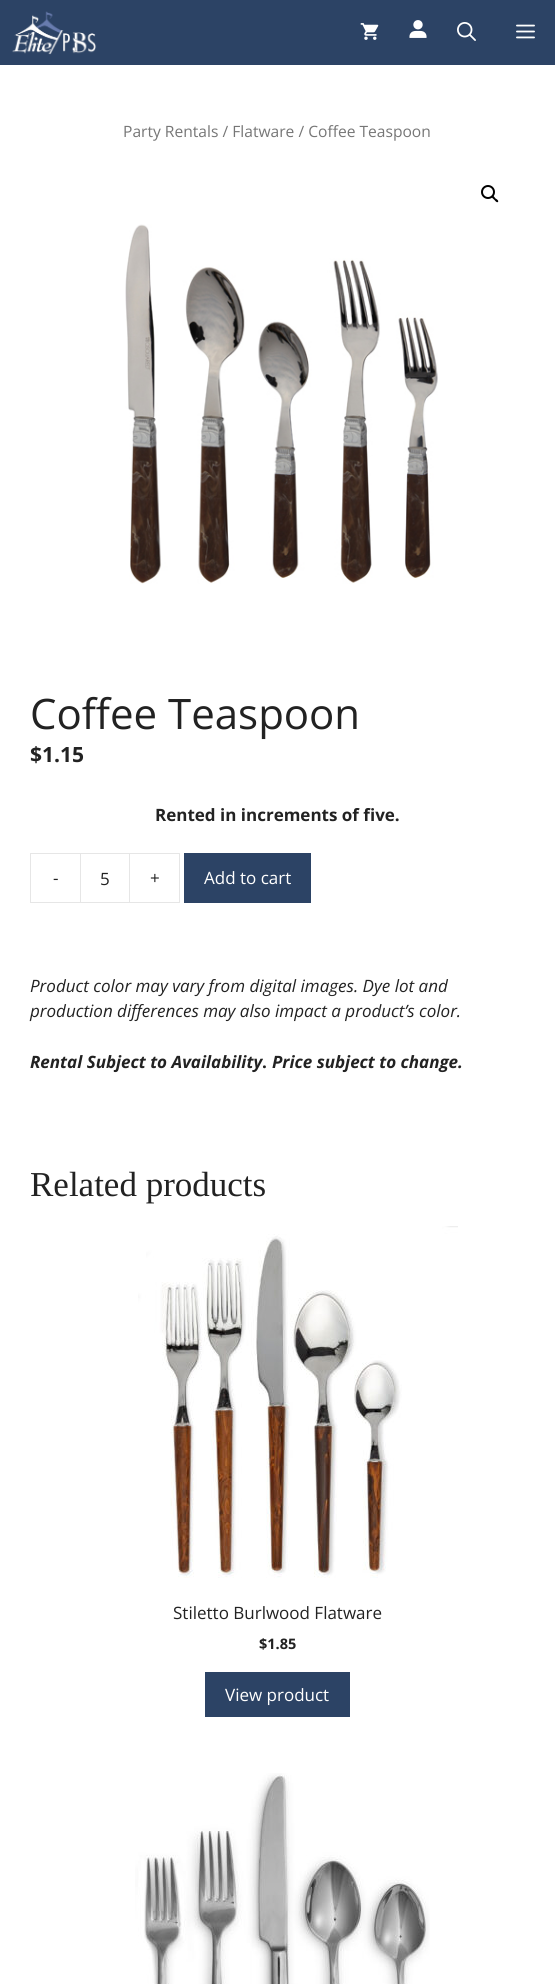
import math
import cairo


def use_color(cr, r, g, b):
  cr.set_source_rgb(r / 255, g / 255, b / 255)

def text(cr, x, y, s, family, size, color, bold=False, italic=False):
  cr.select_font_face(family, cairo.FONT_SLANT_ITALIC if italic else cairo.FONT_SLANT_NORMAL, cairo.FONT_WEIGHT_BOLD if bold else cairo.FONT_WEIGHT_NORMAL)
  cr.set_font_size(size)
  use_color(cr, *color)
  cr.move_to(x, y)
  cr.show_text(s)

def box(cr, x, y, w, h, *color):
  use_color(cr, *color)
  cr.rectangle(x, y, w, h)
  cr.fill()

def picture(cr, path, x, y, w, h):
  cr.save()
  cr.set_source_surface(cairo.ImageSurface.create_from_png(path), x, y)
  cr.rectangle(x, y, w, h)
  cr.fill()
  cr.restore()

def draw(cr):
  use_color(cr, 255, 255, 255)
  cr.paint()
  box(cr, 0, 0, 555, 65, 44, 67, 101)
  picture(cr, "img_01.png", 12, 11, 85, 44)
  picture(cr, "img_02.png", 360, 23, 19, 17)
  picture(cr, "img_03.png", 409, 20, 18, 18)
  picture(cr, "img_04.png", 457, 22, 19, 19)
  picture(cr, "img_05.png", 516, 24, 19, 15)
  cr.arc(488, 192, 6, 0, 2 * math.pi)
  use_color(cr, 0, 0, 0)
  cr.stroke()
  cr.new_path()
  cr.move_to(492, 196)
  cr.curve_to(493.5, 195, 495, 198, 495.5, 198.5)
  cr.curve_to(496.5, 199, 499, 200.5, 498, 202)
  cr.curve_to(496.5, 203, 495, 200.5, 494.5, 200)
  cr.curve_to(493.5, 199, 491, 197.5, 492, 196)
  cr.close_path()
  cr.fill()
  picture(cr, "img_06.png", 125, 224, 313, 360)
  use_color(cr, 230, 230, 230)
  cr.new_path()
  cr.move_to(30, 853)
  cr.line_to(80, 853)
  cr.line_to(80, 854)
  cr.line_to(31, 854)
  cr.close_path()
  cr.move_to(80, 903)
  cr.line_to(30, 903)
  cr.line_to(31, 902)
  cr.line_to(80, 902)
  cr.close_path()
  cr.fill()
  cr.set_source_rgba(0, 0, 0, 0.1)
  cr.new_path()
  cr.move_to(30, 903)
  cr.line_to(30, 853)
  cr.line_to(31, 854)
  cr.line_to(31, 902)
  cr.close_path()
  cr.fill()
  cr.rectangle(80.5, 853.5, 49, 49)
  use_color(cr, 230, 230, 230)
  cr.set_line_width(1)
  cr.stroke()
  cr.new_path()
  cr.move_to(130, 853)
  cr.line_to(180, 853)
  cr.line_to(179, 854)
  cr.line_to(130, 854)
  cr.close_path()
  cr.fill()
  cr.set_source_rgba(0, 0, 0, 0.1)
  cr.new_path()
  cr.move_to(180, 853)
  cr.line_to(180, 903)
  cr.line_to(179, 902)
  cr.line_to(179, 854)
  cr.close_path()
  cr.fill()
  cr.new_path()
  cr.move_to(180, 903)
  cr.line_to(130, 903)
  cr.line_to(130, 902)
  cr.line_to(179, 902)
  cr.close_path()
  cr.fill()
  box(cr, 184, 853, 127, 50, 44, 67, 101)
  picture(cr, "img_07.png", 138, 1226, 320, 352)
  box(cr, 205, 1672, 145, 45, 44, 67, 101)
  picture(cr, "img_08.png", 135, 1773, 295, 211)
  text(cr, 123, 137, "Party Rentals / Flatware / Coffee Teaspoon", "Open Sans", 15.6, (118, 118, 118))
  text(cr, 30, 729, "Coffee Teaspoon", "Open Sans", 42, (34, 34, 34))
  text(cr, 30, 762, "$1.15", "Open Sans", 21, (34, 34, 34), bold=True)
  text(cr, 155, 821, "Rented in increments of five.", "Open Sans", 17, (34, 34, 34), bold=True)
  text(cr, 53, 884, "-", "Open Sans", 17, (34, 34, 34))
  text(cr, 100, 885, "5", "Open Sans", 17, (34, 34, 34))
  text(cr, 150, 884, "+", "Open Sans", 17, (34, 34, 34))
  text(cr, 204, 884, "Add to cart", "Open Sans", 17, (255, 255, 255))
  text(cr, 30, 992, "Product color may vary from digital images. Dye lot and", "Open Sans", 17, (34, 34, 34), italic=True)
  text(cr, 30, 1017, "production differences may also impact a product’s color.", "Open Sans", 17, (34, 34, 34), italic=True)
  text(cr, 30, 1068, "Rental Subject to Availability", "Open Sans", 17, (34, 34, 34), bold=True, italic=True)
  text(cr, 262, 1068, ".", "Open Sans", 17, (34, 34, 34), bold=True)
  text(cr, 272, 1068, "Price subject to change.", "Open Sans", 17, (34, 34, 34), bold=True, italic=True)
  text(cr, 30, 1196, "Related products", "Liberation Serif", 35, (34, 34, 34))
  text(cr, 173, 1619, "Stiletto Burlwood Flatware", "Open Sans", 17, (34, 34, 34))
  text(cr, 259, 1649, "$1.85", "Open Sans", 14.5, (34, 34, 34), bold=True)
  text(cr, 225, 1701, "View product", "Open Sans", 17, (255, 255, 255))


surface = cairo.ImageSurface(cairo.FORMAT_RGB24, 555, 1984)
cr = cairo.Context(surface)
options = cairo.FontOptions()
options.set_hint_metrics(cairo.HINT_METRICS_OFF)
options.set_hint_style(cairo.HINT_STYLE_NONE)
cr.set_font_options(options)
cr.set_miter_limit(4)
draw(cr)
surface.write_to_png("out.png")
